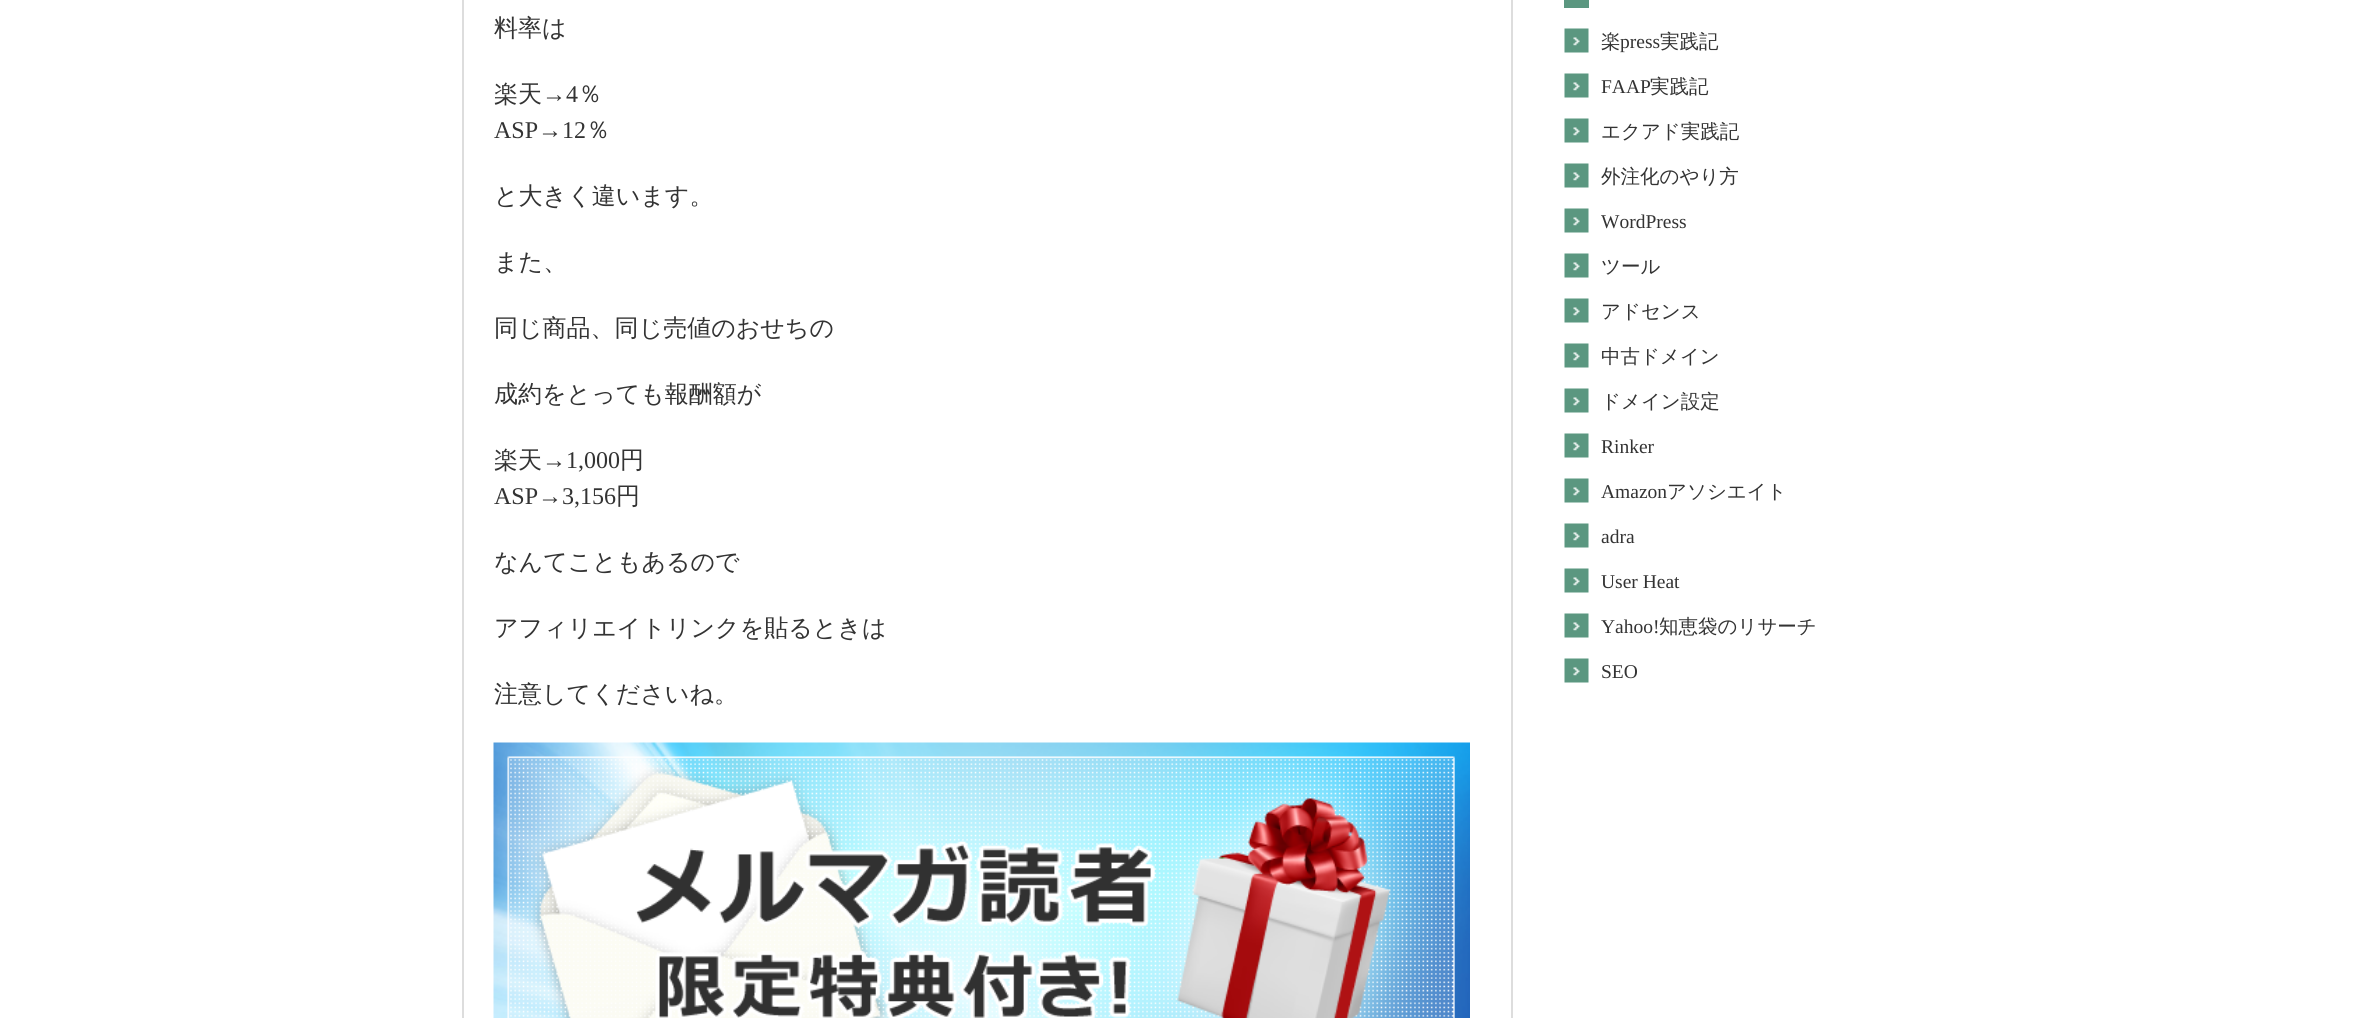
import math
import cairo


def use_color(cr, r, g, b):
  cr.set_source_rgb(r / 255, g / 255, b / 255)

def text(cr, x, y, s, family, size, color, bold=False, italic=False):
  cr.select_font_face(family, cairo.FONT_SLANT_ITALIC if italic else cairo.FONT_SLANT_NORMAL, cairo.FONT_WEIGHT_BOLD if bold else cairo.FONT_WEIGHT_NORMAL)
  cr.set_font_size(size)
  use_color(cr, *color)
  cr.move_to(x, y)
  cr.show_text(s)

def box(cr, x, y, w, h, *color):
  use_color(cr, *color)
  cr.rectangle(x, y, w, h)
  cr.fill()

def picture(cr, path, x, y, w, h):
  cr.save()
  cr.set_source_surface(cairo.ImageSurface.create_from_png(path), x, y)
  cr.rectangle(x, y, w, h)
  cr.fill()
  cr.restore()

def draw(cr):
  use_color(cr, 255, 255, 255)
  cr.paint()
  box(cr, 1511, 0, 2, 1018, 221, 221, 221)
  box(cr, 462, 0, 2, 1018, 221, 221, 221)
  picture(cr, "img_01.png", 493, 742, 977, 276)
  box(cr, 1564, 0, 25, 8, 91, 151, 128)
  picture(cr, "img_02.png", 1564, 28, 25, 25)
  picture(cr, "img_02.png", 1564, 73, 25, 25)
  picture(cr, "img_02.png", 1564, 118, 25, 25)
  picture(cr, "img_02.png", 1564, 163, 25, 25)
  picture(cr, "img_02.png", 1564, 208, 25, 25)
  picture(cr, "img_02.png", 1564, 253, 25, 25)
  picture(cr, "img_02.png", 1564, 298, 25, 25)
  picture(cr, "img_02.png", 1564, 343, 25, 25)
  picture(cr, "img_02.png", 1564, 388, 25, 25)
  picture(cr, "img_02.png", 1564, 433, 25, 25)
  picture(cr, "img_02.png", 1564, 478, 25, 25)
  picture(cr, "img_02.png", 1564, 523, 25, 25)
  picture(cr, "img_02.png", 1564, 568, 25, 25)
  picture(cr, "img_02.png", 1564, 613, 25, 25)
  picture(cr, "img_02.png", 1564, 658, 25, 25)
  text(cr, 494, 36, "料率は", "WenQuanYi Zen Hei Medium", 24, (51, 51, 51))
  text(cr, 494, 102, "楽天", "WenQuanYi Zen Hei Medium", 24, (51, 51, 51))
  text(cr, 542, 102, "→4", "Liberation Serif", 24, (51, 51, 51))
  text(cr, 578, 102, "％", "WenQuanYi Zen Hei Medium", 24, (51, 51, 51))
  text(cr, 494, 138, "ASP→12", "Liberation Serif", 24, (51, 51, 51))
  text(cr, 586, 138, "％", "WenQuanYi Zen Hei Medium", 24, (51, 51, 51))
  text(cr, 494, 204, "と大きく違います。", "WenQuanYi Zen Hei Medium", 24, (51, 51, 51))
  text(cr, 494, 270, "また、", "WenQuanYi Zen Hei Medium", 24, (51, 51, 51))
  text(cr, 494, 336, "同じ商品、同じ売値のおせちの", "WenQuanYi Zen Hei Medium", 24, (51, 51, 51))
  text(cr, 494, 402, "成約をとっても報酬額が", "WenQuanYi Zen Hei Medium", 24, (51, 51, 51))
  text(cr, 494, 468, "楽天", "WenQuanYi Zen Hei Medium", 24, (51, 51, 51))
  text(cr, 542, 468, "→1,000", "Liberation Serif", 24, (51, 51, 51))
  text(cr, 620, 468, "円", "WenQuanYi Zen Hei Medium", 24, (51, 51, 51))
  text(cr, 494, 504, "ASP→3,156", "Liberation Serif", 24, (51, 51, 51))
  text(cr, 616, 504, "円", "WenQuanYi Zen Hei Medium", 24, (51, 51, 51))
  text(cr, 494, 570, "なんてこともあるので", "WenQuanYi Zen Hei Medium", 24, (51, 51, 51))
  text(cr, 494, 636, "アフィリエイトリンクを貼るときは", "WenQuanYi Zen Hei Medium", 24, (51, 51, 51))
  text(cr, 494, 702, "注意してくださいね。", "WenQuanYi Zen Hei Medium", 24, (51, 51, 51))
  text(cr, 1601, 48, "楽", "WenQuanYi Zen Hei Medium", 19.5, (51, 51, 51))
  text(cr, 1620, 48, "press", "Liberation Serif", 19.5, (51, 51, 51))
  text(cr, 1660, 48, "実践記", "WenQuanYi Zen Hei Medium", 19.5, (51, 51, 51))
  text(cr, 1601, 93, "FAAP", "Liberation Serif", 19.5, (51, 51, 51))
  text(cr, 1650, 93, "実践記", "WenQuanYi Zen Hei Medium", 19.5, (51, 51, 51))
  text(cr, 1601, 138, "エクアド実践記", "WenQuanYi Zen Hei Medium", 19.5, (51, 51, 51))
  text(cr, 1601, 183, "外注化のやり方", "WenQuanYi Zen Hei Medium", 19.5, (51, 51, 51))
  text(cr, 1601, 228, "WordPress", "Liberation Serif", 19.5, (51, 51, 51))
  text(cr, 1601, 273, "ツール", "WenQuanYi Zen Hei Medium", 19.5, (51, 51, 51))
  text(cr, 1601, 318, "アドセンス", "WenQuanYi Zen Hei Medium", 19.5, (51, 51, 51))
  text(cr, 1601, 363, "中古ドメイン", "WenQuanYi Zen Hei Medium", 19.5, (51, 51, 51))
  text(cr, 1601, 408, "ドメイン設定", "WenQuanYi Zen Hei Medium", 19.5, (51, 51, 51))
  text(cr, 1601, 453, "Rinker", "Liberation Serif", 19.5, (51, 51, 51))
  text(cr, 1601, 498, "Amazon", "Liberation Serif", 19.5, (51, 51, 51))
  text(cr, 1667, 498, "アソシエイト", "WenQuanYi Zen Hei Medium", 19.5, (51, 51, 51))
  text(cr, 1601, 543, "adra", "Liberation Serif", 19.5, (51, 51, 51))
  text(cr, 1601, 588, "User Heat", "Liberation Serif", 19.5, (51, 51, 51))
  text(cr, 1601, 633, "Yahoo!", "Liberation Serif", 19.5, (51, 51, 51))
  text(cr, 1659, 633, "知恵袋のリサーチ", "WenQuanYi Zen Hei Medium", 19.5, (51, 51, 51))
  text(cr, 1601, 678, "SEO", "Liberation Serif", 19.5, (51, 51, 51))


surface = cairo.ImageSurface(cairo.FORMAT_RGB24, 2379, 1018)
cr = cairo.Context(surface)
options = cairo.FontOptions()
options.set_hint_metrics(cairo.HINT_METRICS_OFF)
options.set_hint_style(cairo.HINT_STYLE_NONE)
cr.set_font_options(options)
cr.set_miter_limit(4)
draw(cr)
surface.write_to_png("out.png")
